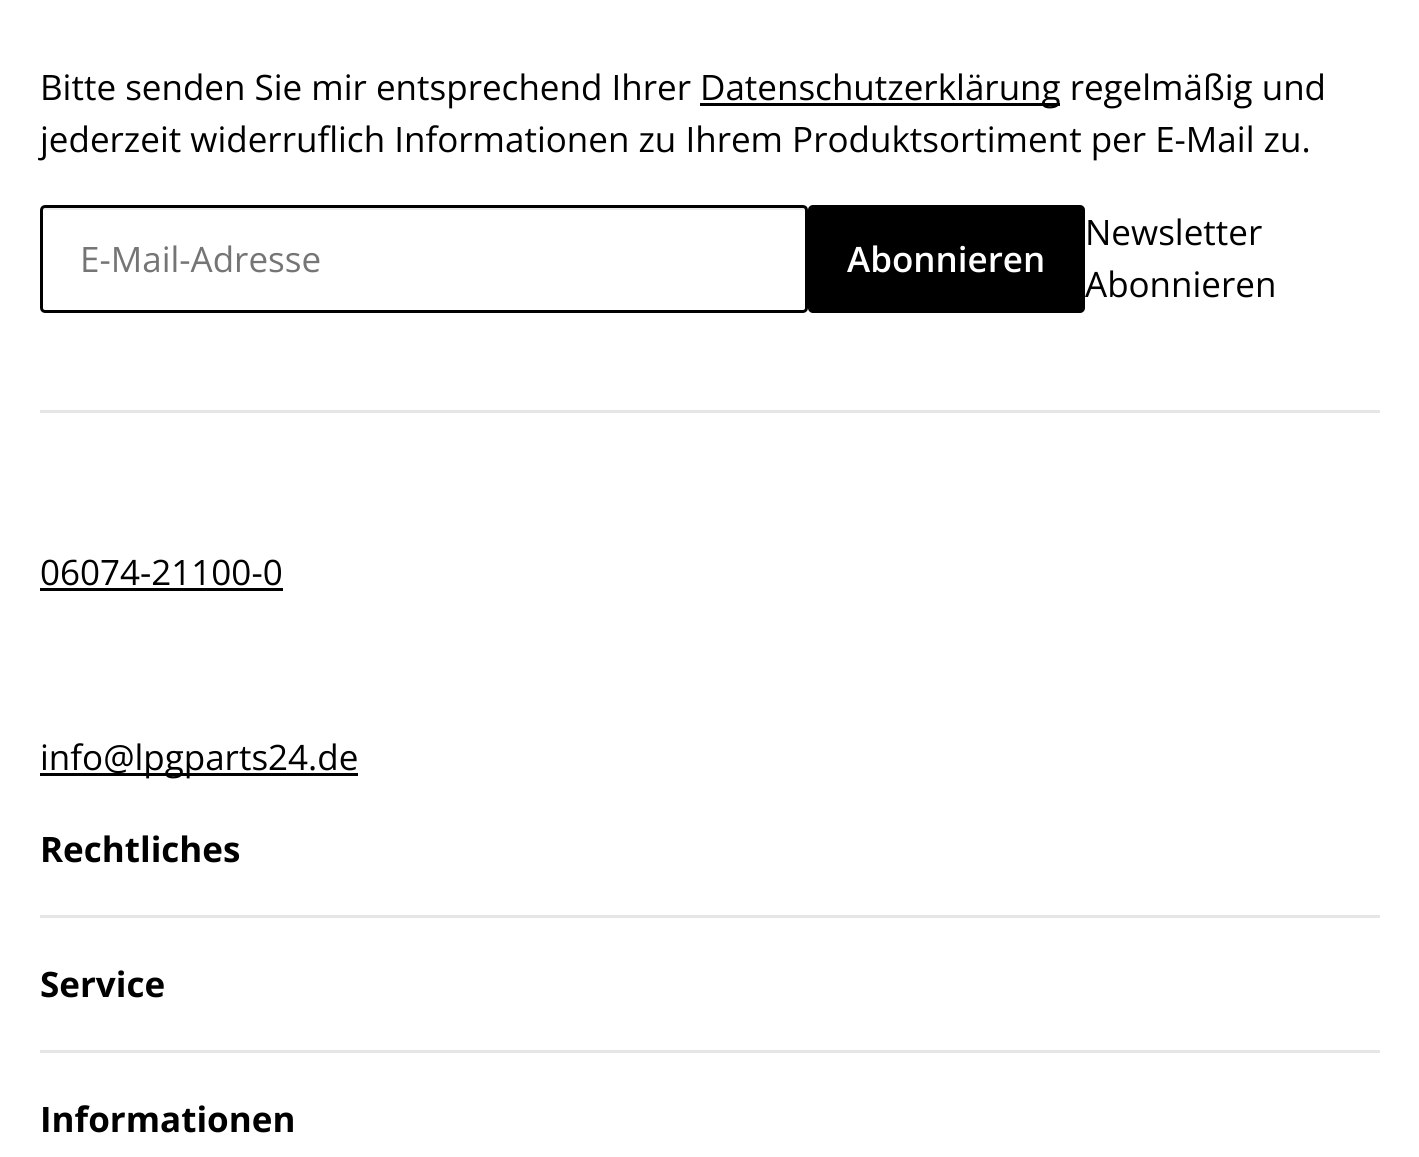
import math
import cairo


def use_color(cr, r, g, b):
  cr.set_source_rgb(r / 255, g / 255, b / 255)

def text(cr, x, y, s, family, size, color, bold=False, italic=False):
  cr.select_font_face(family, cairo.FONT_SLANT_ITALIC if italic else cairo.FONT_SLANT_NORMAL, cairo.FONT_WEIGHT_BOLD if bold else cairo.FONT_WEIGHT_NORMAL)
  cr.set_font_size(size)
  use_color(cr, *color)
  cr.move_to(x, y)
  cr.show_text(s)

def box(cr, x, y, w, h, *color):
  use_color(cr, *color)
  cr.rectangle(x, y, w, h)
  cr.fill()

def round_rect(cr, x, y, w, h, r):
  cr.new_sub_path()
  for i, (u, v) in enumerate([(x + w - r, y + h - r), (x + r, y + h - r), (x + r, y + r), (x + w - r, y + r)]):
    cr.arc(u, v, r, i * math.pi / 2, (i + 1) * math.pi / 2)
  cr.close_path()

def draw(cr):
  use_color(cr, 255, 255, 255)
  cr.paint()
  box(cr, 700, 103, 360, 3, 0, 0, 0)
  use_color(cr, 236, 236, 236)
  cr.new_path()
  cr.move_to(45, 210)
  cr.line_to(802, 210)
  cr.curve_to(804, 210, 805, 211, 805, 212)
  cr.line_to(805, 210)
  cr.curve_to(805, 209, 804, 208, 802, 208)
  cr.line_to(46, 208)
  cr.curve_to(44, 208, 43, 209, 43, 210)
  cr.close_path()
  cr.fill()
  round_rect(cr, 41.5, 206.5, 765, 105, 3.5)
  use_color(cr, 0, 0, 0)
  cr.set_line_width(3)
  cr.stroke()
  round_rect(cr, 808, 205, 277, 108, 5)
  cr.fill()
  box(cr, 40, 410, 1340, 3, 230, 230, 230)
  box(cr, 40, 588, 243, 3, 0, 0, 0)
  box(cr, 40, 773, 318, 3, 0, 0, 0)
  box(cr, 40, 915, 1340, 3, 230, 230, 230)
  box(cr, 40, 1050, 1340, 3, 230, 230, 230)
  text(cr, 40, 100, "Bitte senden Sie mir entsprechend Ihrer", "Open Sans", 35, (0, 0, 0))
  text(cr, 700, 100, "Datenschutzerklärung regelmäßig und", "Open Sans", 35, (0, 0, 0))
  text(cr, 40, 152, "jederzeit widerruflich Informationen zu Ihrem Produktsortiment per E-Mail zu.", "Open Sans", 35, (0, 0, 0))
  text(cr, 80, 272, "E-Mail-Adresse", "Open Sans", 35, (117, 117, 117))
  text(cr, 847, 272, "Abonnieren", "Open Sans SemiBold", 35, (255, 255, 255))
  text(cr, 1085, 245, "Newsletter", "Open Sans", 35, (0, 0, 0))
  text(cr, 1085, 297, "Abonnieren", "Open Sans", 35, (0, 0, 0))
  text(cr, 40, 585, "06074-21100-0", "Open Sans", 35, (0, 0, 0))
  text(cr, 40, 770, "info@lpgparts24.de", "Open Sans", 35, (0, 0, 0))
  text(cr, 40, 862, "Rechtliches", "Open Sans", 35, (0, 0, 0), bold=True)
  text(cr, 40, 997, "Service", "Open Sans", 35, (0, 0, 0), bold=True)
  text(cr, 40, 1132, "Informationen", "Open Sans", 35, (0, 0, 0), bold=True)


surface = cairo.ImageSurface(cairo.FORMAT_RGB24, 1419, 1157)
cr = cairo.Context(surface)
options = cairo.FontOptions()
options.set_hint_metrics(cairo.HINT_METRICS_OFF)
options.set_hint_style(cairo.HINT_STYLE_NONE)
cr.set_font_options(options)
cr.set_miter_limit(4)
draw(cr)
surface.write_to_png("out.png")
